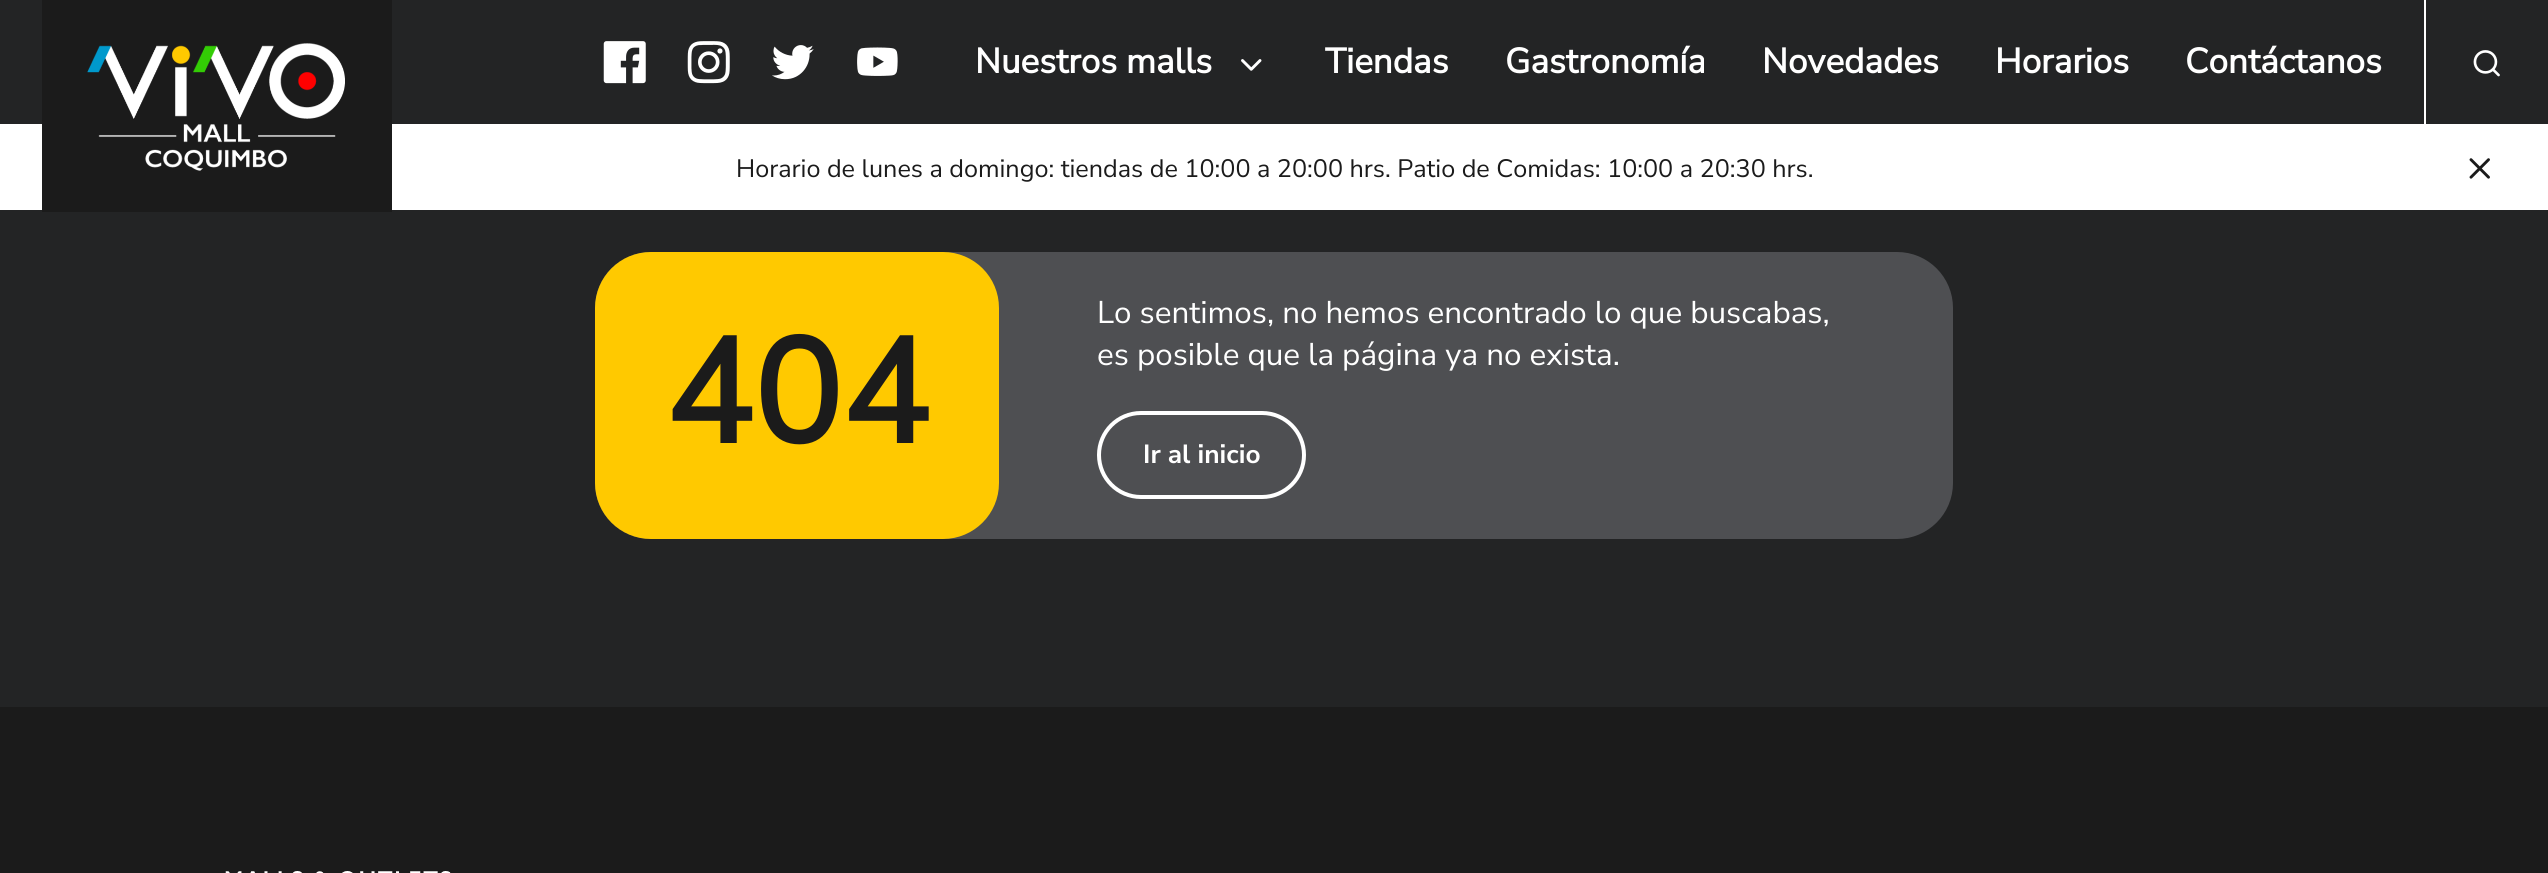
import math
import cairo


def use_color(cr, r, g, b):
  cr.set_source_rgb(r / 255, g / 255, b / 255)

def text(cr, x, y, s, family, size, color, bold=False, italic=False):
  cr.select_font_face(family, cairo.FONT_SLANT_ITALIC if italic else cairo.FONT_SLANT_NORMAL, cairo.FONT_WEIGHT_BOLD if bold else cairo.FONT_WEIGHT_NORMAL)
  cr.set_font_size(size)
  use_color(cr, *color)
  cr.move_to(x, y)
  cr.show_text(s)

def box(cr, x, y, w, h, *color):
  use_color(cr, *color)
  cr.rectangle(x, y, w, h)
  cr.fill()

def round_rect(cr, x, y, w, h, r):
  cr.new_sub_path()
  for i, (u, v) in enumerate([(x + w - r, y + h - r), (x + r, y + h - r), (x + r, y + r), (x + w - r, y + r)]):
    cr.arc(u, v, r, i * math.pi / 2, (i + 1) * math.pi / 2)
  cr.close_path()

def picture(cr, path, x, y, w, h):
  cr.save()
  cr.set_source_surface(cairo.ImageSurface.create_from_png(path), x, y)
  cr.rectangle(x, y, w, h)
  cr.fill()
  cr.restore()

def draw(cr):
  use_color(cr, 35, 36, 37)
  cr.paint()
  box(cr, 0, 124, 2548, 86, 255, 255, 255)
  box(cr, 42, 0, 350, 212, 27, 27, 27)
  picture(cr, "img_01.png", 87, 43, 258, 128)
  picture(cr, "img_02.png", 603, 41, 43, 43)
  picture(cr, "img_03.png", 687, 41, 43, 43)
  picture(cr, "img_04.png", 772, 45, 42, 35)
  picture(cr, "img_05.png", 857, 47, 41, 29)
  picture(cr, "img_06.png", 1241, 59, 21, 12)
  box(cr, 2424, 0, 2, 126, 255, 255, 255)
  picture(cr, "img_07.png", 2473, 50, 27, 27)
  picture(cr, "img_08.png", 2469, 158, 21, 21)
  use_color(cr, 78, 79, 82)
  round_rect(cr, 595, 252, 1358, 287, 56)
  cr.fill()
  use_color(cr, 255, 201, 0)
  round_rect(cr, 595, 252, 404, 287, 56)
  cr.fill()
  round_rect(cr, 1099, 413, 205, 84, 42)
  use_color(cr, 255, 255, 255)
  cr.set_line_width(4)
  cr.stroke()
  box(cr, 0, 707, 2548, 166, 27, 27, 27)
  picture(cr, "img_09.png", 225, 871, 226, 2)
  text(cr, 975, 73, "Nuestros malls", "Nunito Sans", 35, (255, 255, 255), bold=True)
  text(cr, 1325, 73, "Tiendas", "Nunito Sans", 35, (255, 255, 255), bold=True)
  text(cr, 1505, 73, "Gastronomía", "Nunito Sans", 35, (255, 255, 255), bold=True)
  text(cr, 1762, 73, "Novedades", "Nunito Sans", 35, (255, 255, 255), bold=True)
  text(cr, 1995, 73, "Horarios", "Nunito Sans", 35, (255, 255, 255), bold=True)
  text(cr, 2185, 73, "Contáctanos", "Nunito Sans", 35, (255, 255, 255), bold=True)
  text(cr, 736, 177, "Horario de lunes a domingo: tiendas de 10:00 a 20:00 hrs. Patio de Comidas: 10:00 a 20:30 hrs.", "Nunito Sans", 25.2, (27, 27, 27))
  text(cr, 665, 443, "404", "Nunito Sans", 147, (27, 27, 27), bold=True)
  text(cr, 1097, 323, "Lo sentimos, no hemos encontrado lo que buscabas,", "Nunito Sans", 31.4, (255, 255, 255))
  text(cr, 1097, 365, "es posible que la página ya no exista.", "Nunito Sans", 31.4, (255, 255, 255))
  text(cr, 1143, 463, "Ir al inicio", "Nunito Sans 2", 26.25, (255, 255, 255), bold=True)


surface = cairo.ImageSurface(cairo.FORMAT_RGB24, 2548, 873)
cr = cairo.Context(surface)
options = cairo.FontOptions()
options.set_hint_metrics(cairo.HINT_METRICS_OFF)
options.set_hint_style(cairo.HINT_STYLE_NONE)
cr.set_font_options(options)
cr.set_miter_limit(4)
draw(cr)
surface.write_to_png("out.png")
